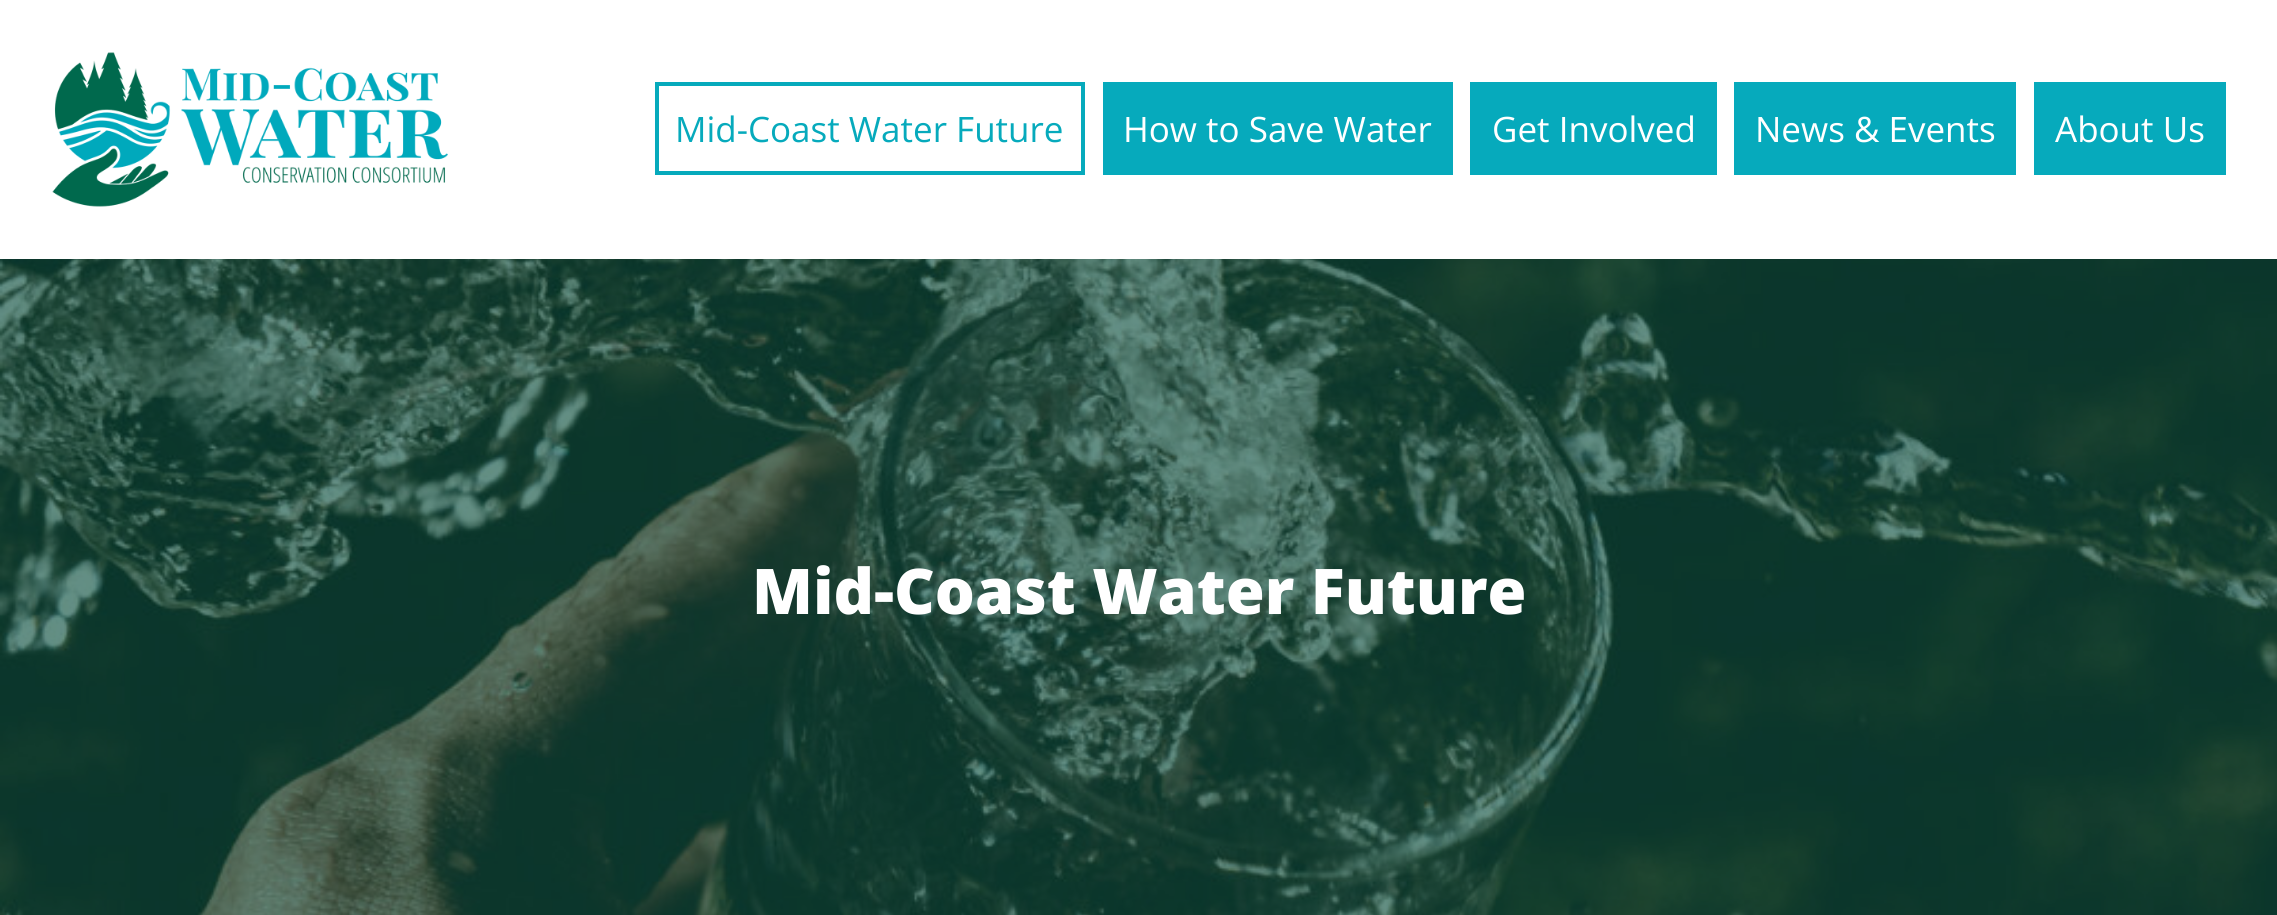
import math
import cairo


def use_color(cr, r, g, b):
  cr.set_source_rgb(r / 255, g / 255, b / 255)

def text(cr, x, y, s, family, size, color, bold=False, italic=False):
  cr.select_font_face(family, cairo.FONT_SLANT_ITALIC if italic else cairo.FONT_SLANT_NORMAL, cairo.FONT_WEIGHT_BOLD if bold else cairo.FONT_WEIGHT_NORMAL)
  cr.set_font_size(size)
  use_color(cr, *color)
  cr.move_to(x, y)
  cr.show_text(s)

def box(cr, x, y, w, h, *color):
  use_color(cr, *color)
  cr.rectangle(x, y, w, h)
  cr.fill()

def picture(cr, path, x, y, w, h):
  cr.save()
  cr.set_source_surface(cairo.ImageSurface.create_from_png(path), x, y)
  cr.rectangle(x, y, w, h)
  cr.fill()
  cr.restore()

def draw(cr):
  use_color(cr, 255, 255, 255)
  cr.paint()
  picture(cr, "img_01.png", 52, 52, 396, 155)
  cr.rectangle(657, 84, 426, 89)
  use_color(cr, 6, 170, 188)
  cr.set_line_width(4)
  cr.stroke()
  box(cr, 1103, 82, 350, 93, 6, 170, 188)
  box(cr, 1470, 82, 247, 93, 6, 170, 188)
  box(cr, 1734, 82, 282, 93, 6, 170, 188)
  box(cr, 2034, 82, 192, 93, 6, 170, 188)
  picture(cr, "img_02.png", 0, 259, 2277, 656)
  text(cr, 675, 142, "Mid-Coast Water Future", "Open Sans", 35, (6, 170, 188))
  text(cr, 1123, 142, "How to Save Water", "Open Sans", 35, (255, 255, 255))
  text(cr, 1492, 142, "Get Involved", "Open Sans", 35, (255, 255, 255))
  text(cr, 1755, 142, "News & Events", "Open Sans", 35, (255, 255, 255))
  text(cr, 2055, 142, "About Us", "Open Sans", 35, (255, 255, 255))
  text(cr, 752, 614, "Mid-Coast Water Future", "Open Sans ExtraBold", 63, (255, 255, 255))


surface = cairo.ImageSurface(cairo.FORMAT_RGB24, 2277, 915)
cr = cairo.Context(surface)
options = cairo.FontOptions()
options.set_hint_metrics(cairo.HINT_METRICS_OFF)
options.set_hint_style(cairo.HINT_STYLE_NONE)
cr.set_font_options(options)
cr.set_miter_limit(4)
draw(cr)
surface.write_to_png("out.png")
